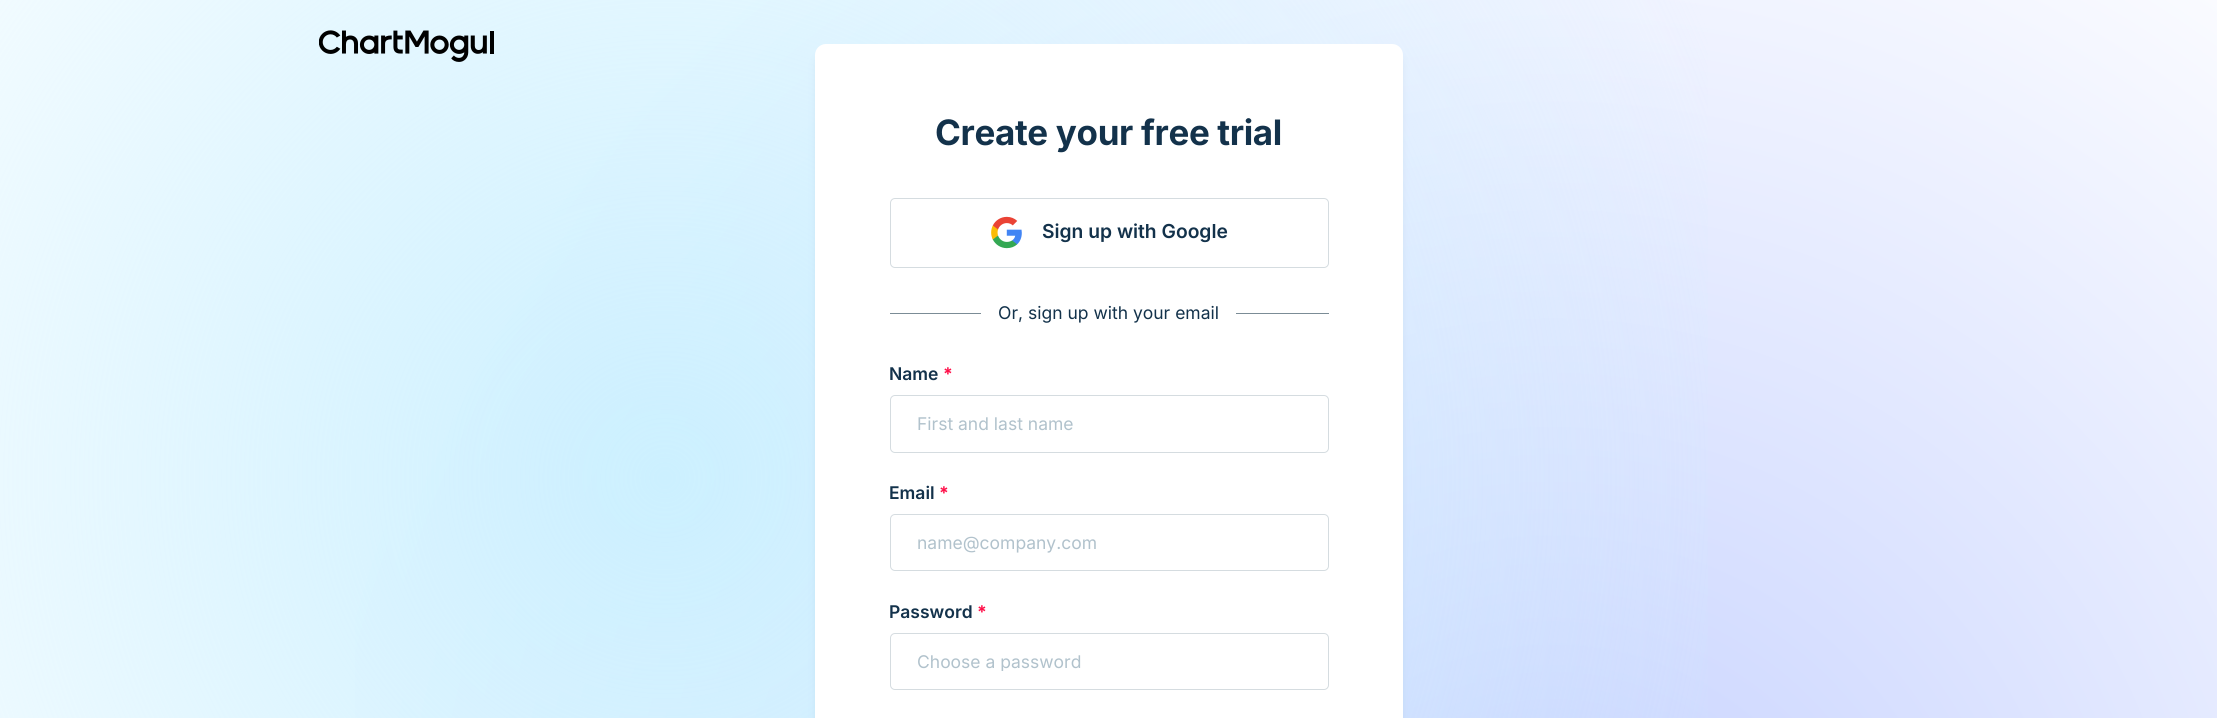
import math
import cairo


def use_color(cr, r, g, b):
  cr.set_source_rgb(r / 255, g / 255, b / 255)

def text(cr, x, y, s, family, size, color, bold=False, italic=False):
  cr.select_font_face(family, cairo.FONT_SLANT_ITALIC if italic else cairo.FONT_SLANT_NORMAL, cairo.FONT_WEIGHT_BOLD if bold else cairo.FONT_WEIGHT_NORMAL)
  cr.set_font_size(size)
  use_color(cr, *color)
  cr.move_to(x, y)
  cr.show_text(s)

def spaced_text(cr, x, y, s, letter, word):
  cr.move_to(x, y)
  for ch in s:
    cr.show_text(ch)
    cr.rel_move_to(letter + word * (ch == ' '), 0)

def box(cr, x, y, w, h, *color):
  use_color(cr, *color)
  cr.rectangle(x, y, w, h)
  cr.fill()

def round_rect(cr, x, y, w, h, r):
  cr.new_sub_path()
  for i, (u, v) in enumerate([(x + w - r, y + h - r), (x + r, y + h - r), (x + r, y + r), (x + w - r, y + r)]):
    cr.arc(u, v, r, i * math.pi / 2, (i + 1) * math.pi / 2)
  cr.close_path()

def shadow(cr, x, y, w, h, r, blur, alpha):
  cr.push_group_with_content(cairo.CONTENT_ALPHA)
  cr.set_operator(cairo.OPERATOR_SOURCE)
  for i in range(15, -16, -2):
    e = blur * i / 6
    if min(w, h) + 2 * e > 0:
      cr.set_source_rgba(0, 0, 0, alpha * math.erfc((i - 1) / 8.5) / 2)
      round_rect(cr, x - e, y - e, w + 2 * e, h + 2 * e, max(0, min(r + e + blur * .6, min(w, h) / 2 + e)))
      cr.fill()
  cr.mask(cr.pop_group())

def picture(cr, path, x, y, w, h):
  cr.save()
  cr.set_source_surface(cairo.ImageSurface.create_from_png(path), x, y)
  cr.rectangle(x, y, w, h)
  cr.fill()
  cr.restore()

def draw(cr):
  use_color(cr, 255, 255, 255)
  cr.paint()
  gradient = cairo.RadialGradient(1552, 955, 0, 1552, 955, 1822)
  gradient.add_color_stop_rgba(0, 0.769, 0.816, 1, 1)
  gradient.add_color_stop_rgba(0.7, 1, 1, 1, 1)
  cr.set_source(gradient)
  cr.rectangle(355, 0, 1862, 718)
  cr.fill()
  gradient = cairo.RadialGradient(665, 478, 0, 665, 478, 1624)
  gradient.add_color_stop_rgba(0, 0.8, 0.941, 1, 1)
  gradient.add_color_stop_rgba(0.7, 0.8, 0.941, 1, 0)
  cr.set_source(gradient)
  cr.rectangle(0, 0, 1708, 718)
  cr.fill()
  picture(cr, "img_01.png", 319, 30, 175, 32)
  use_color(cr, 46, 99, 137)
  shadow(cr, 815, 53, 588, 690, 11, 4.5, 0.07)
  use_color(cr, 255, 255, 255)
  round_rect(cr, 815, 44, 588, 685, 11)
  cr.fill()
  round_rect(cr, 890.5, 198.5, 438, 69, 4.5)
  use_color(cr, 213, 220, 224)
  cr.set_line_width(1)
  cr.stroke()
  picture(cr, "img_02.png", 991, 216, 31, 33)
  box(cr, 890, 313, 91, 1, 123, 140, 150)
  box(cr, 1236, 313, 93, 1, 123, 140, 150)
  round_rect(cr, 890.5, 395.5, 438, 57, 4.5)
  use_color(cr, 213, 220, 224)
  cr.stroke()
  round_rect(cr, 890.5, 514.5, 438, 56, 4.5)
  cr.stroke()
  round_rect(cr, 890.5, 633.5, 438, 56, 4.5)
  cr.stroke()
  cr.select_font_face("Inter", cairo.FONT_SLANT_NORMAL, cairo.FONT_WEIGHT_BOLD)
  cr.set_font_size(35)
  use_color(cr, 19, 50, 75)
  spaced_text(cr, 935, 145, "Create your free trial", -0.35, 0)
  text(cr, 1042, 238, "Sign up with Google", "Inter SemiBold", 19.25, (19, 50, 75))
  text(cr, 998, 319, "Or, sign up with your email", "Inter", 17.5, (19, 50, 75))
  text(cr, 889, 380, "Name", "Inter SemiBold", 17.5, (19, 50, 75))
  text(cr, 943, 380, "*", "Inter", 17.5, (255, 16, 73), bold=True)
  text(cr, 917, 430, "First and last name", "Inter", 17.5, (177, 194, 204))
  text(cr, 889, 499, "Email", "Inter SemiBold", 17.5, (19, 50, 75))
  text(cr, 939, 499, "*", "Inter", 17.5, (255, 16, 73), bold=True)
  text(cr, 917, 549, "name@company.com", "Inter", 17.5, (177, 194, 204))
  text(cr, 889, 618, "Password", "Inter SemiBold", 17.5, (19, 50, 75))
  text(cr, 977, 618, "*", "Inter", 17.5, (255, 16, 73), bold=True)
  cr.save()
  cr.rectangle(918, 650, 383, 21)
  cr.clip()
  text(cr, 917, 668, "Choose a password", "Inter", 17.5, (177, 194, 204))
  cr.restore()


surface = cairo.ImageSurface(cairo.FORMAT_RGB24, 2217, 718)
cr = cairo.Context(surface)
options = cairo.FontOptions()
options.set_hint_metrics(cairo.HINT_METRICS_OFF)
options.set_hint_style(cairo.HINT_STYLE_NONE)
cr.set_font_options(options)
cr.set_miter_limit(4)
draw(cr)
surface.write_to_png("out.png")
